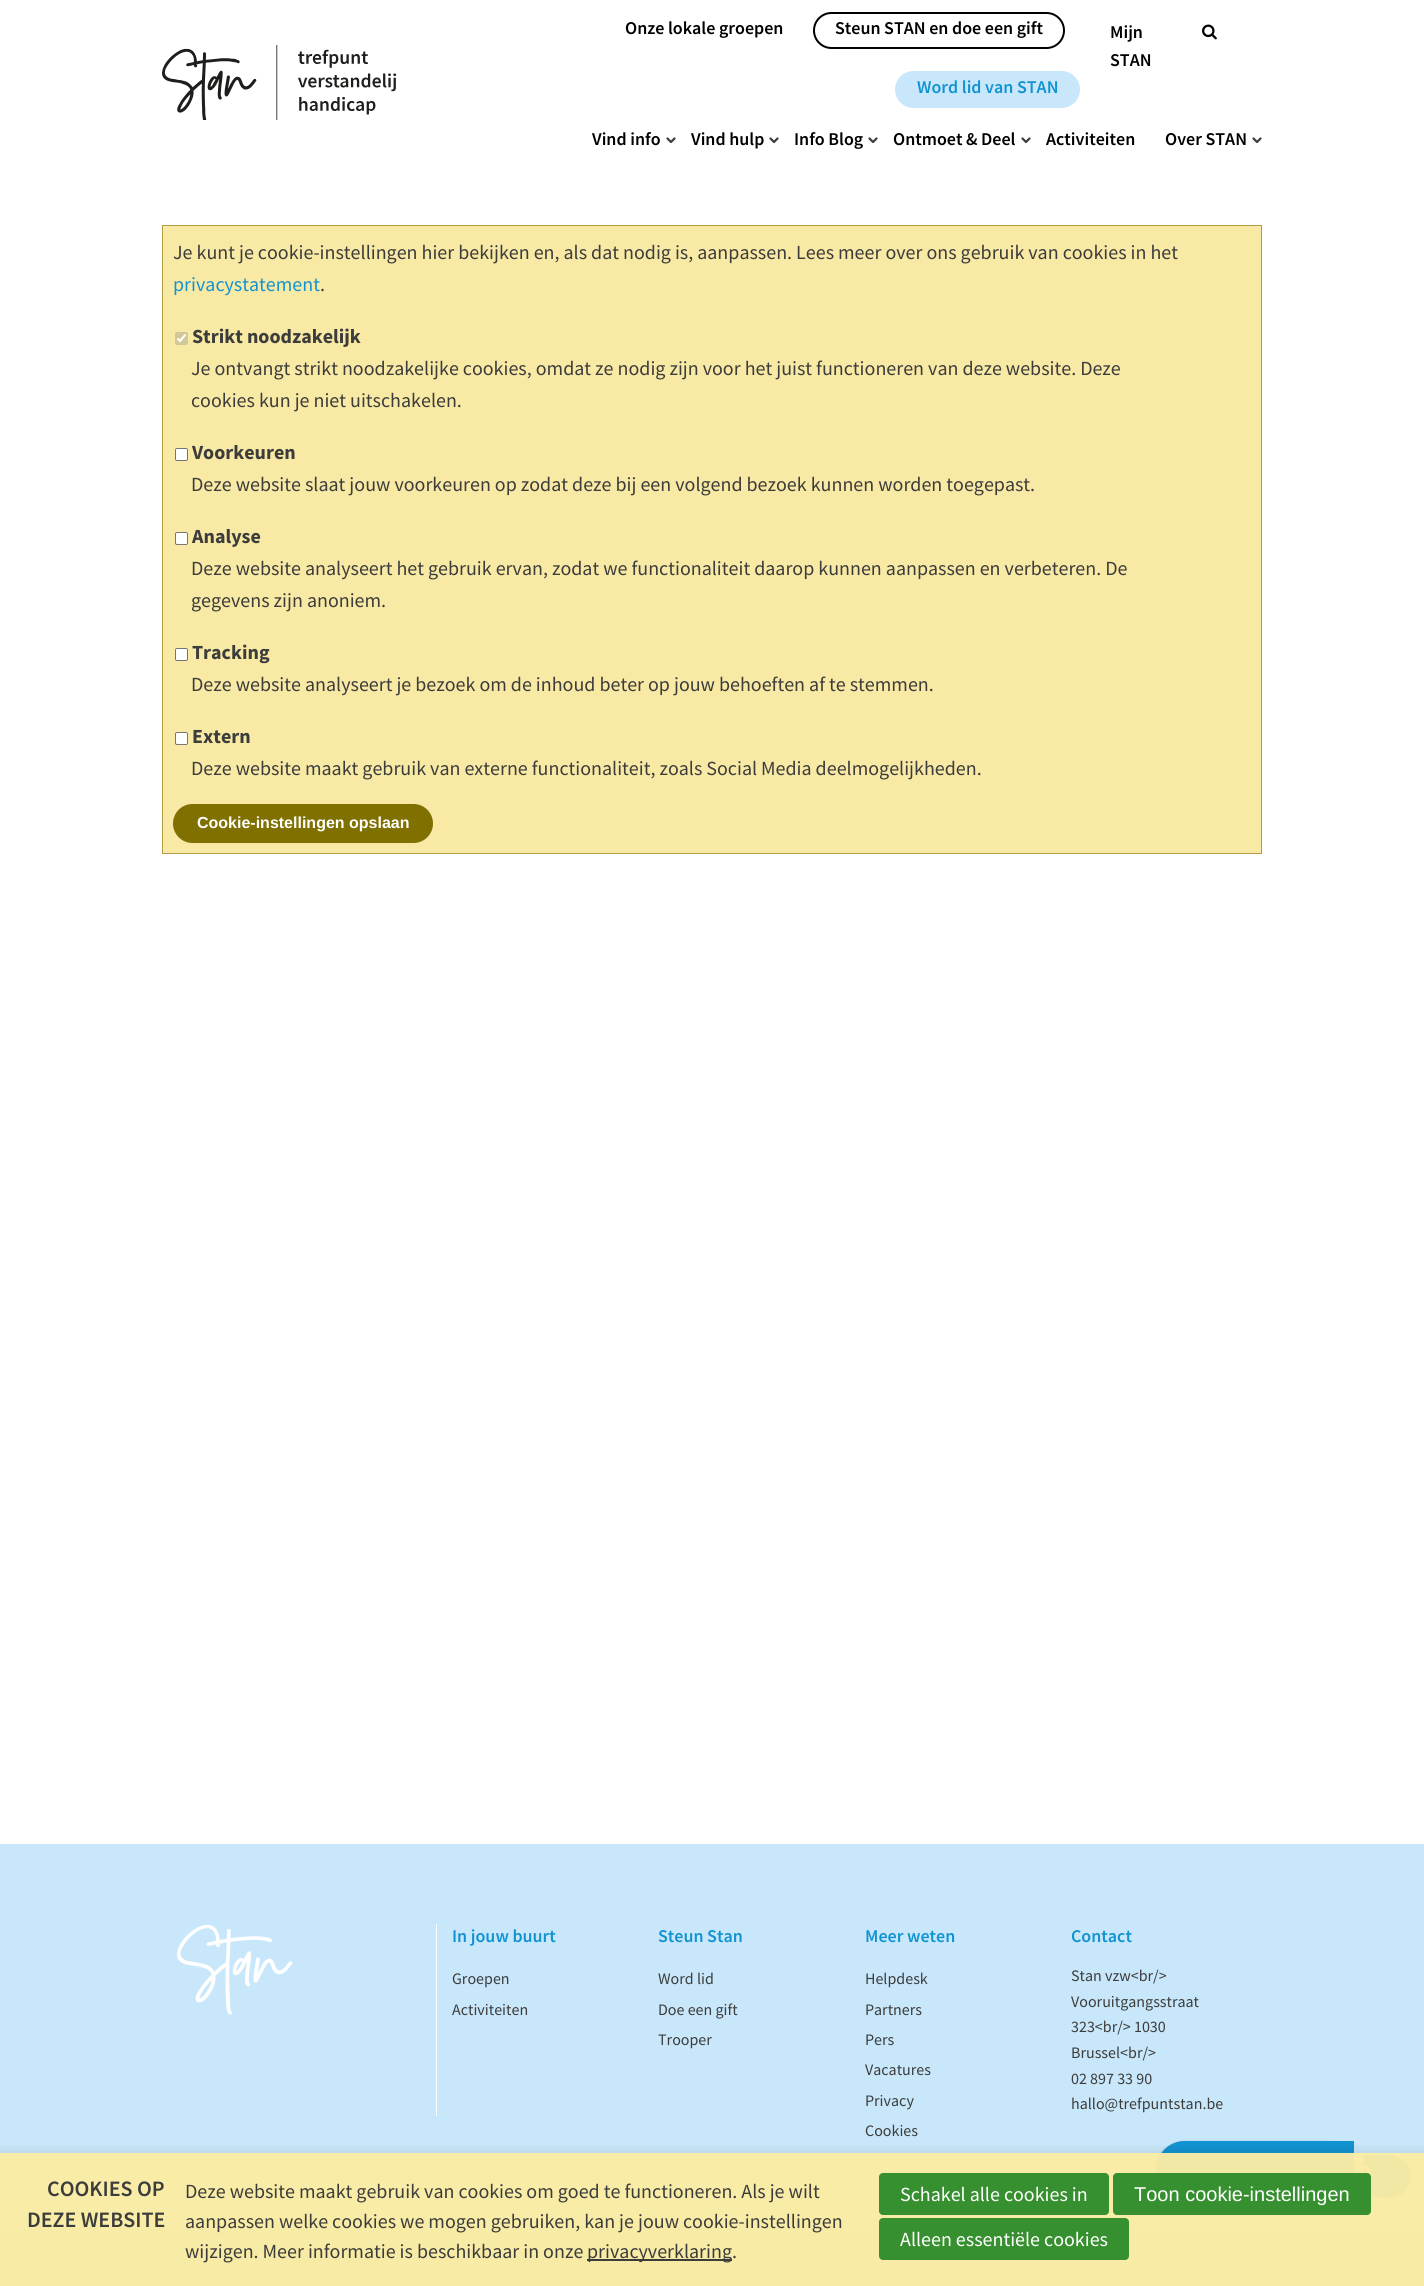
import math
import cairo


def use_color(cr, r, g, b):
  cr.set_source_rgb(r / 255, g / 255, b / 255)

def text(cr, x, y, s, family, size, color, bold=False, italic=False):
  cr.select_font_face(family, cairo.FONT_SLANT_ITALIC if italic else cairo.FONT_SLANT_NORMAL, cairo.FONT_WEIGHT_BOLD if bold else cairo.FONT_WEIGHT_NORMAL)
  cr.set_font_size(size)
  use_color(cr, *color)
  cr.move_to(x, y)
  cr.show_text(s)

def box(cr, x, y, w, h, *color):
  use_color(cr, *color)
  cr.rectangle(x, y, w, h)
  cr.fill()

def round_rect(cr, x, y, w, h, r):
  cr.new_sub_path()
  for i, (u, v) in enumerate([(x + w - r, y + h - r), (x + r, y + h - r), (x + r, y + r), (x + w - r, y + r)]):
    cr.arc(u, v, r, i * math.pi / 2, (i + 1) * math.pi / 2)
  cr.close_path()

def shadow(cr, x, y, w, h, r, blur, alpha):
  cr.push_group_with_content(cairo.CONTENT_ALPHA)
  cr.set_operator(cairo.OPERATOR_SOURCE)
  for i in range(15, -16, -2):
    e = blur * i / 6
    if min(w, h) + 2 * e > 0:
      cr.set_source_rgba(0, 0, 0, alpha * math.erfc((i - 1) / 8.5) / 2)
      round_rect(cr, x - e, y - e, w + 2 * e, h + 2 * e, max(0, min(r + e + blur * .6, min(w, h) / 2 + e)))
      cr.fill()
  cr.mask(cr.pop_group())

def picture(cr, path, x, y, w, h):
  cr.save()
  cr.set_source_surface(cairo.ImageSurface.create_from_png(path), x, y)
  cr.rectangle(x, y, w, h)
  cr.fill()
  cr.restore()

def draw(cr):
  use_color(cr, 255, 255, 255)
  cr.paint()
  picture(cr, "img_01.png", 162, 45, 235, 75)
  round_rect(cr, 814, 13, 250, 35, 17.5)
  use_color(cr, 0, 0, 0)
  cr.stroke()
  use_color(cr, 200, 231, 250)
  round_rect(cr, 896, 72, 183, 35, 17.5)
  cr.fill_preserve()
  cr.stroke()
  picture(cr, "img_02.png", 1202, 24, 15, 16)
  cr.new_path()
  cr.move_to(674.5, 138.5)
  cr.line_to(671, 142)
  cr.line_to(667.5, 138.5)
  use_color(cr, 60, 60, 59)
  cr.set_line_width(2.2)
  cr.set_line_cap(cairo.LINE_CAP_ROUND)
  cr.set_line_join(cairo.LINE_JOIN_ROUND)
  cr.stroke()
  cr.new_path()
  cr.move_to(777.5, 138.5)
  cr.line_to(774, 142)
  cr.line_to(770.5, 138.5)
  cr.stroke()
  cr.new_path()
  cr.move_to(876.5, 138.5)
  cr.line_to(873, 142)
  cr.line_to(869.5, 138.5)
  cr.stroke()
  cr.new_path()
  cr.move_to(1029.5, 138.5)
  cr.line_to(1026, 142)
  cr.line_to(1022.5, 138.5)
  cr.stroke()
  cr.new_path()
  cr.move_to(1260.5, 138.5)
  cr.line_to(1257, 142)
  cr.line_to(1253.5, 138.5)
  cr.stroke()
  use_color(cr, 248, 233, 165)
  cr.rectangle(162.5, 225.5, 1099, 628)
  cr.fill_preserve()
  use_color(cr, 177, 157, 68)
  cr.set_line_width(1)
  cr.set_line_cap(cairo.LINE_CAP_BUTT)
  cr.set_line_join(cairo.LINE_JOIN_MITER)
  cr.stroke()
  use_color(cr, 209, 199, 151)
  round_rect(cr, 175, 332, 13, 13, 2)
  cr.fill()
  cr.new_path()
  cr.move_to(177.5, 338.5)
  cr.line_to(180, 341)
  cr.line_to(185.5, 334.5)
  use_color(cr, 255, 255, 255)
  cr.set_line_width(2.1)
  cr.stroke()
  round_rect(cr, 175.5, 448.5, 12, 12, 1.5)
  cr.fill_preserve()
  use_color(cr, 118, 118, 118)
  cr.set_line_width(1)
  cr.stroke()
  use_color(cr, 255, 255, 255)
  round_rect(cr, 175.5, 532.5, 12, 12, 1.5)
  cr.fill_preserve()
  use_color(cr, 118, 118, 118)
  cr.stroke()
  use_color(cr, 255, 255, 255)
  round_rect(cr, 175.5, 648.5, 12, 12, 1.5)
  cr.fill_preserve()
  use_color(cr, 118, 118, 118)
  cr.stroke()
  use_color(cr, 255, 255, 255)
  round_rect(cr, 175.5, 732.5, 12, 12, 1.5)
  cr.fill_preserve()
  use_color(cr, 118, 118, 118)
  cr.stroke()
  use_color(cr, 127, 112, 0)
  round_rect(cr, 173, 804, 260, 39, 19.5)
  cr.fill()
  box(cr, 0, 1844, 1424, 382, 200, 231, 250)
  box(cr, 436, 1924, 1, 192, 255, 255, 255)
  picture(cr, "img_03.png", 177, 1924, 116, 91)
  box(cr, 0, 2226, 1424, 60, 175, 214, 238)
  use_color(cr, 0, 0, 0)
  shadow(cr, 1156, 2142, 198, 57, 28.5, 1, 0.24)
  shadow(cr, 1156, 2142, 198, 57, 28.5, 1.5, 0.12)
  use_color(cr, 18, 147, 209)
  cr.new_path()
  cr.move_to(1184.5, 2141)
  cr.line_to(1354, 2141)
  cr.line_to(1354, 2198)
  cr.line_to(1184.5, 2198)
  cr.curve_to(1169, 2198, 1156, 2185, 1156, 2169.5)
  cr.curve_to(1156, 2154, 1169, 2141, 1184.5, 2141)
  cr.close_path()
  cr.fill()
  use_color(cr, 0, 0, 0)
  shadow(cr, 1364, 2156, 46, 42, 21, 1, 0.24)
  shadow(cr, 1364, 2156, 46, 42, 21, 1.5, 0.12)
  use_color(cr, 18, 147, 209)
  cr.new_path()
  cr.move_to(1364, 2155)
  cr.line_to(1389, 2155)
  cr.curve_to(1400.5, 2155, 1410, 2164.5, 1410, 2176)
  cr.curve_to(1410, 2187.5, 1400.5, 2197, 1389, 2197)
  cr.line_to(1364, 2197)
  cr.close_path()
  cr.fill()
  cr.save()
  cr.rectangle(1364, 2166, 6, 10)
  cr.clip()
  cr.new_path()
  cr.move_to(1365, 2167)
  cr.line_to(1369, 2171)
  cr.line_to(1365, 2175)
  use_color(cr, 255, 255, 255)
  cr.set_line_width(2.5)
  cr.set_line_cap(cairo.LINE_CAP_ROUND)
  cr.set_line_join(cairo.LINE_JOIN_ROUND)
  cr.stroke()
  cr.restore()
  cr.save()
  cr.rectangle(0, 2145, 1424, 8)
  cr.clip()
  use_color(cr, 0, 0, 0)
  shadow(cr, 0, 2158, 1424, 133, 0, 10, 0.2)
  cr.restore()
  cr.set_source_rgba(0.988, 0.929, 0.639, 0.95)
  cr.rectangle(0, 2153, 1424, 133)
  cr.fill()
  box(cr, 587, 2259, 145, 2, 60, 60, 59)
  use_color(cr, 55, 144, 47)
  round_rect(cr, 879.5, 2173.5, 229, 41, 3.5)
  cr.fill_preserve()
  cr.stroke()
  round_rect(cr, 1113.5, 2173.5, 257, 41, 3.5)
  cr.fill_preserve()
  cr.stroke()
  round_rect(cr, 879.5, 2218.5, 249, 41, 3.5)
  cr.fill_preserve()
  cr.stroke()
  text(cr, 625, 34, "Onze lokale groepen", "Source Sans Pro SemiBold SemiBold", 18, (0, 0, 0))
  text(cr, 835, 34, "Steun STAN en doe een gift", "Source Sans Pro SemiBold SemiBold", 18, (0, 0, 0))
  text(cr, 917, 93, "Word lid van STAN", "Source Sans Pro SemiBold SemiBold", 18, (18, 147, 209))
  text(cr, 1110, 38, "Mijn", "Source Sans Pro SemiBold SemiBold", 18, (0, 0, 0))
  text(cr, 1110, 66, "STAN", "Source Sans Pro SemiBold SemiBold", 18, (0, 0, 0))
  text(cr, 592, 145, "Vind info", "Source Sans Pro SemiBold SemiBold", 18, (0, 0, 0))
  text(cr, 691, 145, "Vind hulp", "Source Sans Pro SemiBold SemiBold", 18, (0, 0, 0))
  text(cr, 794, 145, "Info Blog", "Source Sans Pro SemiBold SemiBold", 18, (0, 0, 0))
  text(cr, 893, 145, "Ontmoet & Deel", "Source Sans Pro SemiBold SemiBold", 18, (0, 0, 0))
  text(cr, 1046, 145, "Activiteiten", "Source Sans Pro SemiBold SemiBold", 18, (0, 0, 0))
  text(cr, 1165, 145, "Over STAN", "Source Sans Pro SemiBold SemiBold", 18, (0, 0, 0))
  text(cr, 173, 259, "Je kunt je cookie-instellingen hier bekijken en, als dat nodig is, aanpassen. Lees meer over ons gebruik van cookies in het", "Source Sans Pro", 20, (60, 60, 59))
  text(cr, 173, 291, "privacystatement", "Source Sans Pro", 20, (18, 147, 209))
  text(cr, 320, 291, ".", "Source Sans Pro", 20, (60, 60, 59))
  text(cr, 192, 343, "Strikt noodzakelijk", "Source Sans Pro", 20, (60, 60, 59), bold=True)
  text(cr, 191, 375, "Je ontvangt strikt noodzakelijke cookies, omdat ze nodig zijn voor het juist functioneren van deze website. Deze", "Source Sans Pro", 20, (60, 60, 59))
  text(cr, 191, 407, "cookies kun je niet uitschakelen.", "Source Sans Pro", 20, (60, 60, 59))
  text(cr, 192, 459, "Voorkeuren", "Source Sans Pro", 20, (60, 60, 59), bold=True)
  text(cr, 191, 491, "Deze website slaat jouw voorkeuren op zodat deze bij een volgend bezoek kunnen worden toegepast.", "Source Sans Pro", 20, (60, 60, 59))
  text(cr, 192, 543, "Analyse", "Source Sans Pro", 20, (60, 60, 59), bold=True)
  text(cr, 191, 575, "Deze website analyseert het gebruik ervan, zodat we functionaliteit daarop kunnen aanpassen en verbeteren. De", "Source Sans Pro", 20, (60, 60, 59))
  text(cr, 191, 607, "gegevens zijn anoniem.", "Source Sans Pro", 20, (60, 60, 59))
  text(cr, 192, 659, "Tracking", "Source Sans Pro", 20, (60, 60, 59), bold=True)
  text(cr, 191, 691, "Deze website analyseert je bezoek om de inhoud beter op jouw behoeften af te stemmen.", "Source Sans Pro", 20, (60, 60, 59))
  text(cr, 192, 743, "Extern", "Source Sans Pro", 20, (60, 60, 59), bold=True)
  text(cr, 191, 775, "Deze website maakt gebruik van externe functionaliteit, zoals Social Media deelmogelijkheden.", "Source Sans Pro", 20, (60, 60, 59))
  text(cr, 197, 828, "Cookie-instellingen opslaan", "Liberation Sans", 16, (255, 255, 255), bold=True)
  text(cr, 452, 1942, "In jouw buurt", "Source Sans Pro SemiBold SemiBold", 18, (18, 147, 209))
  text(cr, 452, 1984, "Groepen", "Source Sans Pro", 16, (60, 60, 59))
  text(cr, 452, 2015, "Activiteiten", "Source Sans Pro", 16, (60, 60, 59))
  text(cr, 658, 1942, "Steun Stan", "Source Sans Pro SemiBold SemiBold", 18, (18, 147, 209))
  text(cr, 658, 1984, "Word lid", "Source Sans Pro", 16, (60, 60, 59))
  text(cr, 658, 2015, "Doe een gift", "Source Sans Pro", 16, (60, 60, 59))
  text(cr, 658, 2045, "Trooper", "Source Sans Pro", 16, (60, 60, 59))
  text(cr, 865, 1942, "Meer weten", "Source Sans Pro SemiBold SemiBold", 18, (18, 147, 209))
  text(cr, 865, 1984, "Helpdesk", "Source Sans Pro", 16, (60, 60, 59))
  text(cr, 865, 2015, "Partners", "Source Sans Pro", 16, (60, 60, 59))
  text(cr, 865, 2045, "Pers", "Source Sans Pro", 16, (60, 60, 59))
  text(cr, 865, 2075, "Vacatures", "Source Sans Pro", 16, (60, 60, 59))
  text(cr, 865, 2106, "Privacy", "Source Sans Pro", 16, (60, 60, 59))
  text(cr, 865, 2136, "Cookies", "Source Sans Pro", 16, (60, 60, 59))
  text(cr, 1071, 1942, "Contact", "Source Sans Pro SemiBold SemiBold", 18, (18, 147, 209))
  text(cr, 1071, 1981, "Stan vzw<br/>", "Source Sans Pro", 16, (60, 60, 59))
  text(cr, 1071, 2007, "Vooruitgangsstraat", "Source Sans Pro", 16, (60, 60, 59))
  text(cr, 1071, 2032, "323<br/> 1030", "Source Sans Pro", 16, (60, 60, 59))
  text(cr, 1071, 2058, "Brussel<br/>", "Source Sans Pro", 16, (60, 60, 59))
  text(cr, 1071, 2084, "02 897 33 90", "Source Sans Pro", 16, (60, 60, 59))
  text(cr, 1071, 2109, "hallo@trefpuntstan.be", "Source Sans Pro", 16, (60, 60, 59))
  text(cr, 47, 2196, "COOKIES OP", "Source Sans Pro SemiBold SemiBold", 22, (60, 60, 59))
  text(cr, 27, 2227, "DEZE WEBSITE", "Source Sans Pro SemiBold SemiBold", 22, (60, 60, 59))
  text(cr, 185, 2198, "Deze website maakt gebruik van cookies om goed te functioneren. Als je wilt", "Source Sans Pro", 20, (60, 60, 59))
  text(cr, 185, 2228, "aanpassen welke cookies we mogen gebruiken, kan je jouw cookie-instellingen", "Source Sans Pro", 20, (60, 60, 59))
  text(cr, 185, 2258, "wijzigen. Meer informatie is beschikbaar in onze", "Source Sans Pro", 20, (60, 60, 59))
  text(cr, 587, 2258, "privacyverklaring.", "Source Sans Pro", 20, (60, 60, 59))
  text(cr, 900, 2201, "Schakel alle cookies in", "Source Sans Pro", 20, (255, 255, 255))
  text(cr, 1134, 2201, "Toon cookie-instellingen", "Liberation Sans", 20, (255, 255, 255))
  text(cr, 900, 2246, "Alleen essentiële cookies", "Source Sans Pro", 20, (255, 255, 255))


surface = cairo.ImageSurface(cairo.FORMAT_RGB24, 1424, 2286)
cr = cairo.Context(surface)
options = cairo.FontOptions()
options.set_hint_metrics(cairo.HINT_METRICS_OFF)
options.set_hint_style(cairo.HINT_STYLE_NONE)
cr.set_font_options(options)
cr.set_miter_limit(4)
draw(cr)
surface.write_to_png("out.png")
